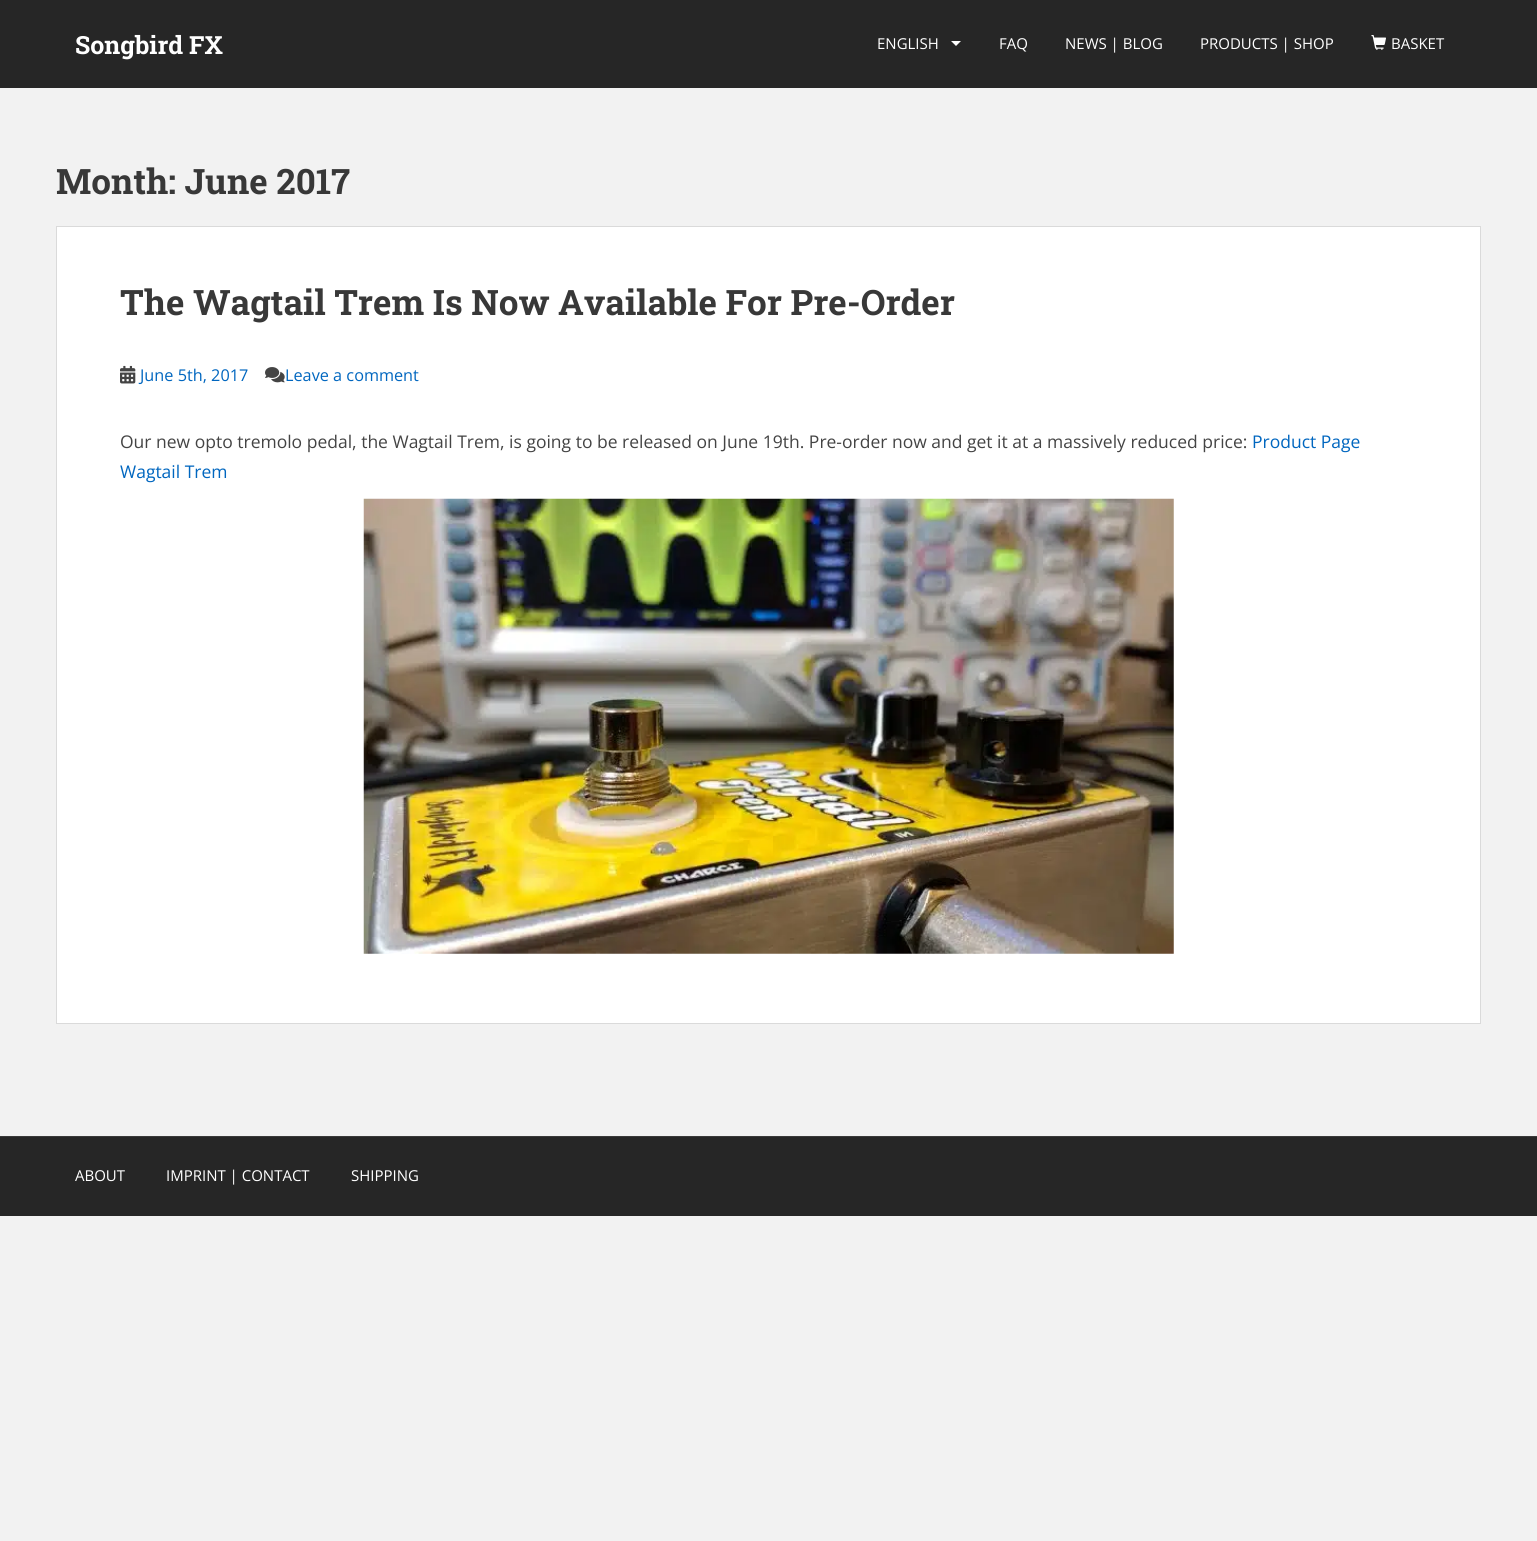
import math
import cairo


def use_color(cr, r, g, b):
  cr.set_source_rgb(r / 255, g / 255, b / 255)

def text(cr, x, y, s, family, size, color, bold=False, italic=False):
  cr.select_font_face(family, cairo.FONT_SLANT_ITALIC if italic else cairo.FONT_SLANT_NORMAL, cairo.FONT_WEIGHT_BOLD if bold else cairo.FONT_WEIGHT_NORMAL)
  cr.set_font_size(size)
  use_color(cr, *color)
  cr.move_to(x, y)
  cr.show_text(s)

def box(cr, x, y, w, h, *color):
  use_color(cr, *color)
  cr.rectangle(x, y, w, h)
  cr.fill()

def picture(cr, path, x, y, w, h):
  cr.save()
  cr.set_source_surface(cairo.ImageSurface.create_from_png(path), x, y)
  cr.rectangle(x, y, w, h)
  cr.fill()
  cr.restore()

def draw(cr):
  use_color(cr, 242, 242, 242)
  cr.paint()
  box(cr, 0, 0, 1537, 88, 38, 38, 38)
  use_color(cr, 255, 255, 255)
  cr.new_path()
  cr.move_to(951, 41)
  cr.line_to(961, 41)
  cr.line_to(956, 46)
  cr.close_path()
  cr.fill()
  picture(cr, "img_01.png", 1371, 35, 15, 15)
  cr.rectangle(56.5, 226.5, 1424, 797)
  cr.fill_preserve()
  use_color(cr, 218, 218, 218)
  cr.set_line_width(1)
  cr.stroke()
  picture(cr, "img_02.png", 120, 365, 16, 19)
  picture(cr, "img_03.png", 265, 367, 20, 16)
  picture(cr, "img_04.png", 363, 498, 811, 456)
  box(cr, 0, 1137, 1537, 79, 38, 38, 38)
  box(cr, 0, 1136, 1537, 1, 58, 58, 58)
  text(cr, 75, 54, "Songbird FX", "Roboto Slab", 25, (255, 255, 255), bold=True)
  text(cr, 877, 49, "ENGLISH", "Open Sans", 15, (255, 255, 255))
  text(cr, 999, 49, "FAQ", "Open Sans", 15, (255, 255, 255))
  text(cr, 1065, 49, "NEWS | BLOG", "Open Sans", 15, (255, 255, 255))
  text(cr, 1200, 49, "PRODUCTS | SHOP", "Open Sans", 15, (255, 255, 255))
  text(cr, 1391, 49, "BASKET", "Open Sans", 15, (255, 255, 255))
  text(cr, 56, 194, "Month: June 2017", "Roboto Slab", 35, (56, 56, 56), bold=True)
  text(cr, 120, 315, "The Wagtail Trem Is Now Available For Pre-Order", "Roboto Slab", 35, (56, 56, 56), bold=True)
  text(cr, 140, 381, "June 5th, 2017", "Open Sans", 16.25, (0, 102, 191))
  text(cr, 285, 381, "Leave a comment", "Open Sans", 16.25, (0, 102, 191))
  text(cr, 120, 448, "Our new opto tremolo pedal, the Wagtail Trem, is going to be released on June 19th. Pre-order now and get it at a massively reduced price:", "Open Sans", 17.5, (68, 68, 68))
  text(cr, 1252, 448, "Product Page", "Open Sans", 17.5, (0, 102, 191))
  text(cr, 120, 478, "Wagtail Trem", "Open Sans", 17.5, (0, 102, 191))
  text(cr, 75, 1181, "ABOUT", "Open Sans", 15, (255, 255, 255))
  text(cr, 166, 1181, "IMPRINT | CONTACT", "Open Sans", 15, (255, 255, 255))
  text(cr, 351, 1181, "SHIPPING", "Open Sans", 15, (255, 255, 255))


surface = cairo.ImageSurface(cairo.FORMAT_RGB24, 1537, 1541)
cr = cairo.Context(surface)
options = cairo.FontOptions()
options.set_hint_metrics(cairo.HINT_METRICS_OFF)
options.set_hint_style(cairo.HINT_STYLE_NONE)
cr.set_font_options(options)
cr.set_miter_limit(4)
draw(cr)
surface.write_to_png("out.png")
